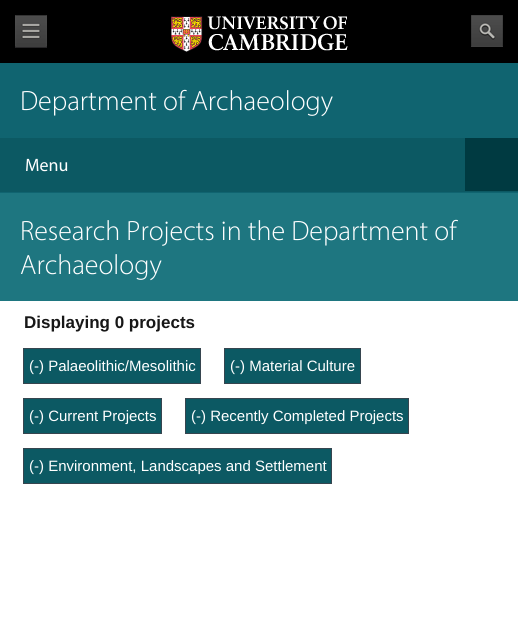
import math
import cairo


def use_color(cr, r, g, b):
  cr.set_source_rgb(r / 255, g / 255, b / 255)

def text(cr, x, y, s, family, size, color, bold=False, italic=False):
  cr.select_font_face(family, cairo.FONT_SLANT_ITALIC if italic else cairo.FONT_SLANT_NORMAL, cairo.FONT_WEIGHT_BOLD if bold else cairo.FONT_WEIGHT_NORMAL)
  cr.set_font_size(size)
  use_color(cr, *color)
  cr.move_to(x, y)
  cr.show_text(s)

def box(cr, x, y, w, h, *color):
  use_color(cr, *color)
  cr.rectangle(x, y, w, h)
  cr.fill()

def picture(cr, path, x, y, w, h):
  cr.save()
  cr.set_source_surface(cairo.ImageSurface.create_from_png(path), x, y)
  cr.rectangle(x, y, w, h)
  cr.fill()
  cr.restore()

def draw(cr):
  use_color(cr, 0, 0, 0)
  cr.paint()
  picture(cr, "img_01.png", 15, 15, 32, 33)
  picture(cr, "img_02.png", 171, 16, 177, 36)
  picture(cr, "img_03.png", 471, 15, 32, 32)
  box(cr, 0, 63, 518, 75, 16, 100, 112)
  box(cr, 0, 138, 518, 54, 12, 89, 99)
  box(cr, 0, 192, 518, 1, 16, 100, 112)
  box(cr, 465, 138, 53, 53, 0, 58, 65)
  box(cr, 0, 193, 518, 108, 30, 118, 128)
  box(cr, 0, 301, 518, 321, 255, 255, 255)
  use_color(cr, 12, 89, 99)
  cr.rectangle(23.5, 348.5, 177, 35)
  cr.fill_preserve()
  use_color(cr, 54, 69, 79)
  cr.set_line_width(1)
  cr.stroke()
  use_color(cr, 12, 89, 99)
  cr.rectangle(224.5, 348.5, 136, 35)
  cr.fill_preserve()
  use_color(cr, 54, 69, 79)
  cr.stroke()
  use_color(cr, 12, 89, 99)
  cr.rectangle(23.5, 398.5, 138, 35)
  cr.fill_preserve()
  use_color(cr, 54, 69, 79)
  cr.stroke()
  use_color(cr, 12, 89, 99)
  cr.rectangle(185.5, 398.5, 223, 35)
  cr.fill_preserve()
  use_color(cr, 54, 69, 79)
  cr.stroke()
  use_color(cr, 12, 89, 99)
  cr.rectangle(23.5, 448.5, 308, 35)
  cr.fill_preserve()
  use_color(cr, 54, 69, 79)
  cr.stroke()
  text(cr, 20, 110, "Department of Archaeology", "Myriad Light", 28, (255, 255, 255))
  text(cr, 25, 171, "Menu", "Myriad", 18, (255, 255, 255))
  text(cr, 20, 240, "Research Projects in the Department of", "Myriad Light", 28, (255, 255, 255))
  text(cr, 20, 274, "Archaeology", "Myriad Light", 28, (255, 255, 255))
  text(cr, 24, 328, "Displaying 0 projects", "Liberation Sans", 17, (23, 23, 23), bold=True)
  text(cr, 29, 371, "(-) Palaeolithic/Mesolithic", "Liberation Sans", 15, (255, 255, 255))
  text(cr, 230, 371, "(-) Material Culture", "Liberation Sans", 15, (255, 255, 255))
  text(cr, 29, 421, "(-) Current Projects", "Liberation Sans", 15, (255, 255, 255))
  text(cr, 191, 421, "(-) Recently Completed Projects", "Liberation Sans", 15, (255, 255, 255))
  text(cr, 29, 471, "(-) Environment, Landscapes and Settlement", "Liberation Sans", 15, (255, 255, 255))


surface = cairo.ImageSurface(cairo.FORMAT_RGB24, 518, 622)
cr = cairo.Context(surface)
options = cairo.FontOptions()
options.set_hint_metrics(cairo.HINT_METRICS_OFF)
options.set_hint_style(cairo.HINT_STYLE_NONE)
cr.set_font_options(options)
cr.set_miter_limit(4)
draw(cr)
surface.write_to_png("out.png")
